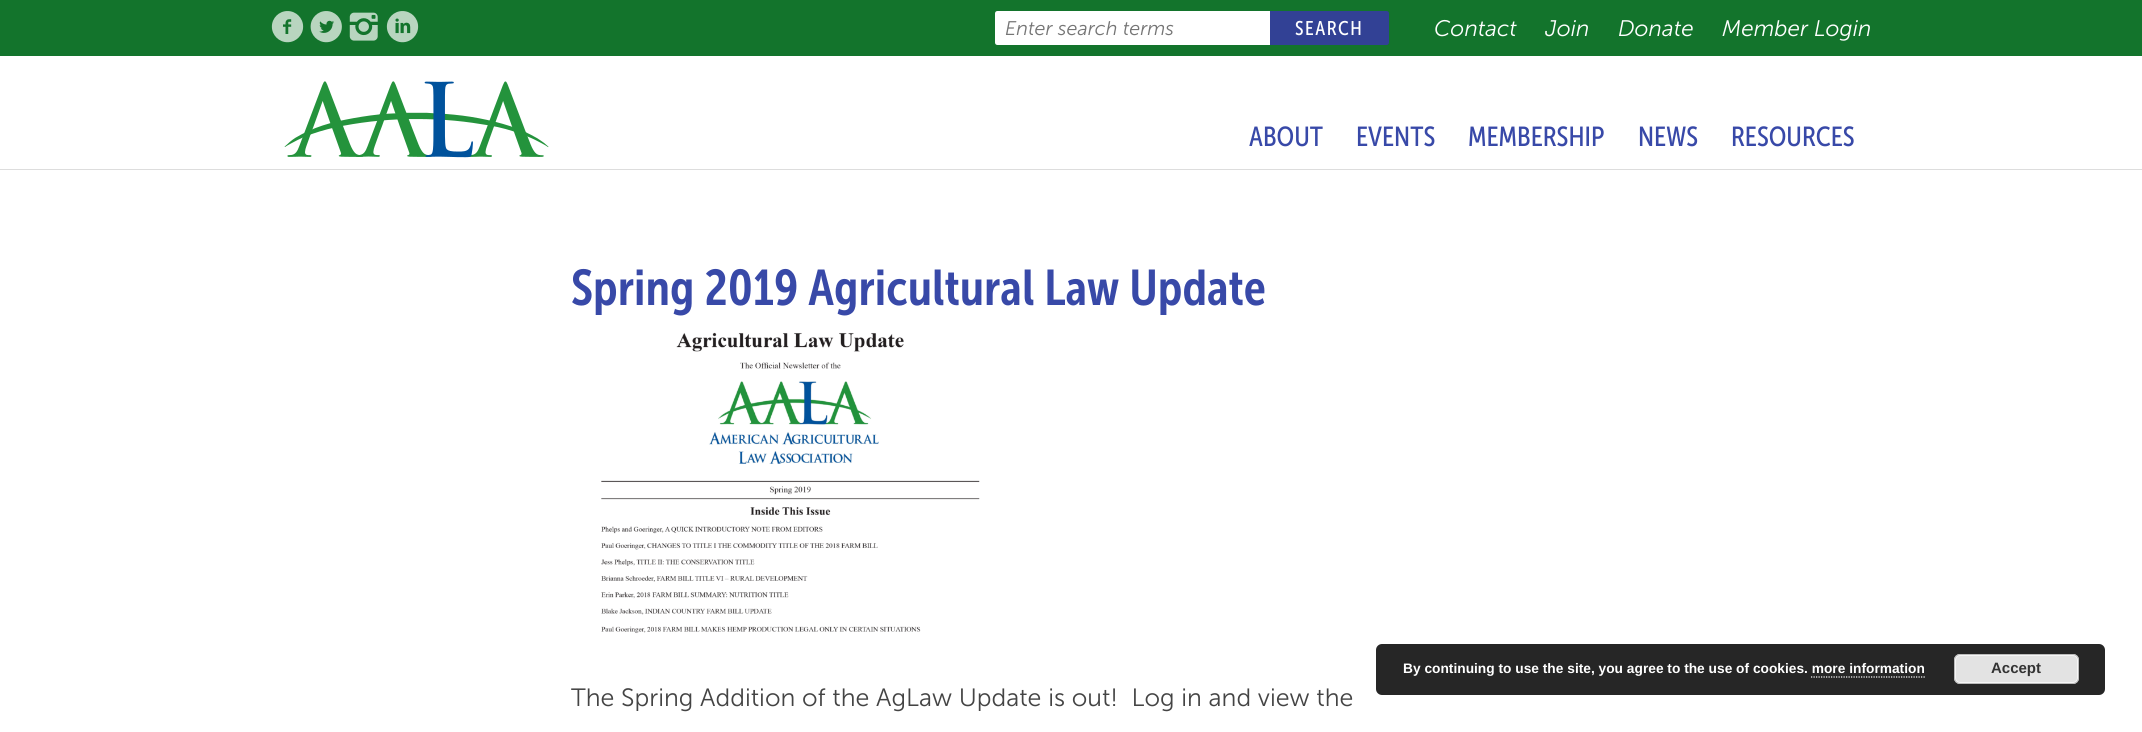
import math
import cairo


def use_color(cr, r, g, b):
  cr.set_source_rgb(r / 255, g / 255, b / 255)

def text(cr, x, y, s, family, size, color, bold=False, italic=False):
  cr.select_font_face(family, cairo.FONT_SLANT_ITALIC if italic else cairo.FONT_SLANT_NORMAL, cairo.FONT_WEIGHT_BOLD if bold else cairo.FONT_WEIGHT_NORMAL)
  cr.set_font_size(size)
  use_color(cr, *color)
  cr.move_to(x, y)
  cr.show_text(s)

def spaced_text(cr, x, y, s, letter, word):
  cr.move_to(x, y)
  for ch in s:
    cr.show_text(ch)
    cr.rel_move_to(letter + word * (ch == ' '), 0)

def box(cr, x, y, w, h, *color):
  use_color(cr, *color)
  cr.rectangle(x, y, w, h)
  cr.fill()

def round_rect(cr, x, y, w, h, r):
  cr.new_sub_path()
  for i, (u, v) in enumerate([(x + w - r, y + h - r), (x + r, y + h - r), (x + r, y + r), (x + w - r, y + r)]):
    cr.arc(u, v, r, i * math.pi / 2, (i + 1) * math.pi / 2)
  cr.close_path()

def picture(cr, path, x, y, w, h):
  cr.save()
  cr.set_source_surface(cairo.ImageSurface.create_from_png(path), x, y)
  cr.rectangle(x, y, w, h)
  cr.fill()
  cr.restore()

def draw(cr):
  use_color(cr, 255, 255, 255)
  cr.paint()
  box(cr, 0, 0, 2142, 56, 19, 116, 44)
  picture(cr, "img_01.png", 271, 11, 33, 32)
  picture(cr, "img_02.png", 310, 11, 32, 32)
  picture(cr, "img_03.png", 349, 12, 29, 29)
  picture(cr, "img_04.png", 386, 11, 33, 32)
  use_color(cr, 255, 255, 255)
  cr.new_path()
  cr.move_to(997.5, 11)
  cr.line_to(1270, 11)
  cr.line_to(1270, 45)
  cr.line_to(997.5, 45)
  cr.curve_to(996, 45, 995, 44, 995, 42.5)
  cr.line_to(995, 13.5)
  cr.curve_to(995, 12, 996, 11, 997.5, 11)
  cr.close_path()
  cr.fill()
  use_color(cr, 50, 65, 149)
  cr.new_path()
  cr.move_to(1270, 11)
  cr.line_to(1386.5, 11)
  cr.curve_to(1388, 11, 1389, 12, 1389, 13.5)
  cr.line_to(1389, 42.5)
  cr.curve_to(1389, 44, 1388, 45, 1386.5, 45)
  cr.line_to(1270, 45)
  cr.close_path()
  cr.fill()
  box(cr, 0, 169, 2142, 1, 221, 221, 221)
  picture(cr, "img_05.png", 284, 81, 265, 77)
  picture(cr, "img_06.png", 601, 332, 379, 302)
  use_color(cr, 38, 38, 38)
  round_rect(cr, 1376, 644, 729, 51, 6)
  cr.fill()
  use_color(cr, 227, 227, 227)
  round_rect(cr, 1954, 654, 125, 30, 6)
  cr.fill()
  round_rect(cr, 1955.5, 655.5, 122, 27, 4.5)
  use_color(cr, 246, 246, 246)
  cr.set_line_width(1)
  cr.stroke()
  round_rect(cr, 1954.5, 654.5, 124, 29, 5.5)
  use_color(cr, 187, 187, 187)
  cr.stroke()
  cr.new_path()
  cr.move_to(1811, 677)
  cr.line_to(1925, 677)
  use_color(cr, 255, 255, 255)
  cr.set_line_width(1.2)
  cr.set_dash([1.25, 1.25])
  cr.stroke()
  text(cr, 1005, 35, "Enter search terms", "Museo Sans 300 Light", 19.75, (117, 117, 117), italic=True)
  cr.select_font_face("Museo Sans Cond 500")
  use_color(cr, 255, 255, 255)
  spaced_text(cr, 1295, 35, "SEARCH", 1.5, 0)
  text(cr, 1434, 36, "Contact", "Museo Sans 300 Light", 22.5, (255, 255, 255), italic=True)
  text(cr, 1545, 36, "Join", "Museo Sans 300 Light", 22.5, (255, 255, 255), italic=True)
  text(cr, 1618, 36, "Donate", "Museo Sans 300 Light", 22.5, (255, 255, 255), italic=True)
  text(cr, 1722, 36, "Member Login", "Museo Sans 300 Light", 22.5, (255, 255, 255), italic=True)
  text(cr, 1249, 146, "ABOUT", "Museo Sans Cond 500", 27.5, (56, 73, 168))
  text(cr, 1356, 146, "EVENTS", "Museo Sans Cond 500", 27.5, (56, 73, 168))
  text(cr, 1468, 146, "MEMBERSHIP", "Museo Sans Cond 500", 27.5, (56, 73, 168))
  text(cr, 1638, 146, "NEWS", "Museo Sans Cond 500", 27.5, (56, 73, 168))
  text(cr, 1731, 146, "RESOURCES", "Museo Sans Cond 500", 27.5, (56, 73, 168))
  text(cr, 571, 305, "Spring 2019 Agricultural Law Update", "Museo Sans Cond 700 SemiBold", 50, (56, 73, 168))
  text(cr, 571, 706, "The Spring Addition of the AgLaw Update is out!  Log in and view the", "Museo Sans 300 Light", 25, (68, 68, 68))
  text(cr, 1403, 673, "By continuing to use the site, you agree to the use of cookies. more information", "Liberation Sans", 13.75, (255, 255, 255), bold=True)
  text(cr, 1991, 673, "Accept", "Liberation Sans", 15, (51, 51, 51), bold=True)


surface = cairo.ImageSurface(cairo.FORMAT_RGB24, 2142, 732)
cr = cairo.Context(surface)
options = cairo.FontOptions()
options.set_hint_metrics(cairo.HINT_METRICS_OFF)
options.set_hint_style(cairo.HINT_STYLE_NONE)
cr.set_font_options(options)
cr.set_miter_limit(4)
draw(cr)
surface.write_to_png("out.png")
